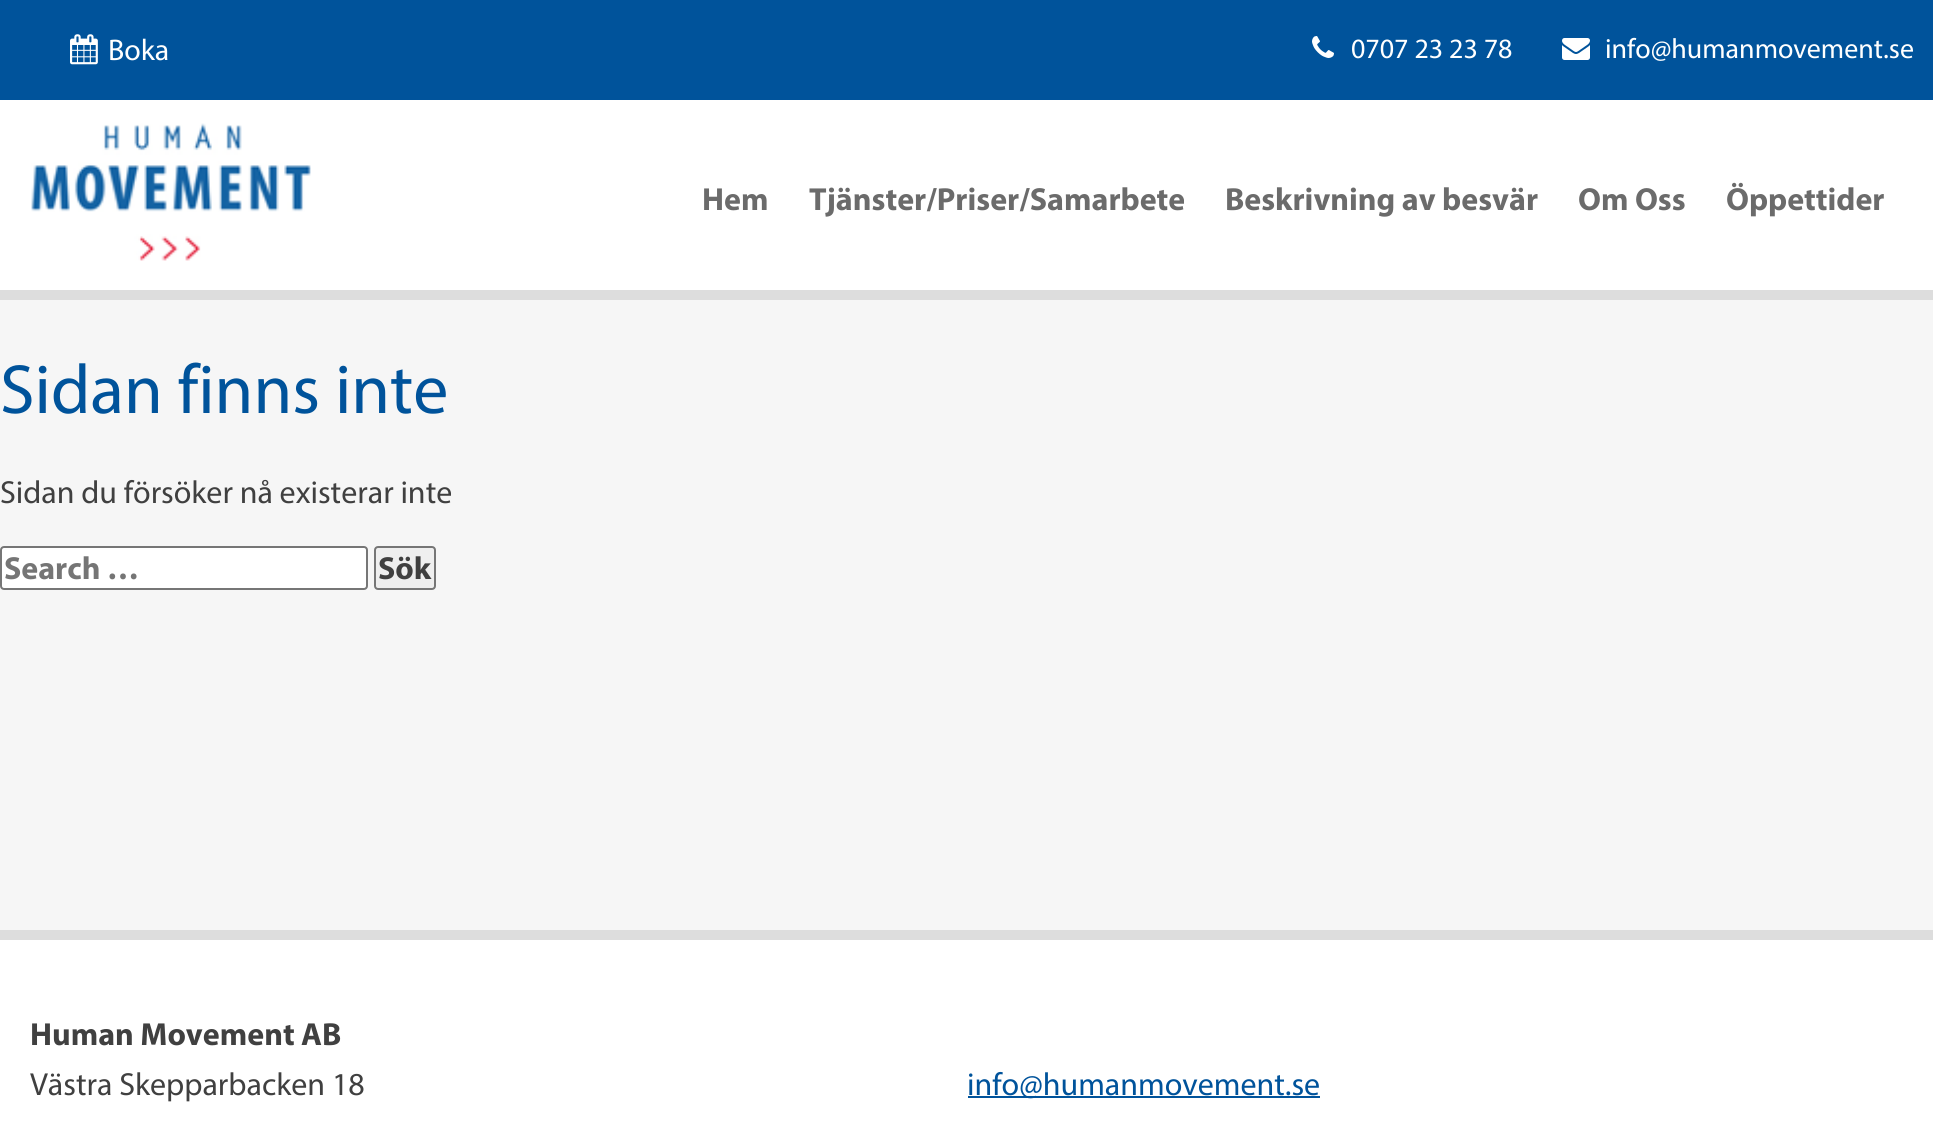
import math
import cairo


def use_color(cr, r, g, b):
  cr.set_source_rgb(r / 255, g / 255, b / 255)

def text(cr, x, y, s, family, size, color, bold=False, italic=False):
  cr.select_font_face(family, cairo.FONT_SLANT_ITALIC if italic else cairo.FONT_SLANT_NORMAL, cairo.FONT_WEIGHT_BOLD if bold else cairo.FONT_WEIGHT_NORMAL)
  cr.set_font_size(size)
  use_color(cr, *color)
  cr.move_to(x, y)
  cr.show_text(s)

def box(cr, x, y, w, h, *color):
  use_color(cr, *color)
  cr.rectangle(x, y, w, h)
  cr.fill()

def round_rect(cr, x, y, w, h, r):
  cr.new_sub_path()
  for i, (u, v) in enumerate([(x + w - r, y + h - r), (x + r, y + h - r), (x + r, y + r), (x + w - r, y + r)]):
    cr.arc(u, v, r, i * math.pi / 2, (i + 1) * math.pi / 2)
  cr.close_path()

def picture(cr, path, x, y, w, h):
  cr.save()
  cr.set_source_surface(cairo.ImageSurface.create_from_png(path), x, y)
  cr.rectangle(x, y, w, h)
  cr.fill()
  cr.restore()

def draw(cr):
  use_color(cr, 246, 246, 246)
  cr.paint()
  box(cr, 0, 0, 1933, 100, 0, 83, 155)
  picture(cr, "img_01.png", 70, 34, 28, 31)
  picture(cr, "img_02.png", 1312, 36, 22, 22)
  picture(cr, "img_03.png", 1562, 38, 28, 22)
  box(cr, 0, 100, 1933, 190, 255, 255, 255)
  box(cr, 0, 290, 1933, 10, 221, 221, 221)
  picture(cr, "img_04.png", 31, 123, 280, 138)
  use_color(cr, 255, 255, 255)
  round_rect(cr, 1, 547, 366, 42, 3)
  cr.fill_preserve()
  use_color(cr, 118, 118, 118)
  cr.stroke()
  use_color(cr, 239, 239, 239)
  round_rect(cr, 375, 547, 60, 42, 3)
  cr.fill_preserve()
  use_color(cr, 118, 118, 118)
  cr.stroke()
  box(cr, 0, 930, 1933, 10, 221, 221, 221)
  box(cr, 0, 940, 1933, 185, 255, 255, 255)
  box(cr, 968, 1096, 352, 2, 0, 83, 155)
  text(cr, 108, 60, "Boka", "Myriad", 30, (255, 255, 255))
  text(cr, 1351, 58, "0707 23 23 78", "Myriad", 28, (255, 255, 255))
  text(cr, 1605, 58, "info@humanmovement.se", "Myriad", 28, (255, 255, 255))
  text(cr, 702, 210, "Hem", "Myriad", 32, (107, 107, 107), bold=True)
  text(cr, 809, 210, "Tjänster/Priser/Samarbete", "Myriad", 32, (107, 107, 107), bold=True)
  text(cr, 1225, 210, "Beskrivning av besvär", "Myriad", 32, (107, 107, 107), bold=True)
  text(cr, 1578, 210, "Om Oss", "Myriad", 32, (107, 107, 107), bold=True)
  text(cr, 1726, 210, "Öppettider", "Myriad", 32, (107, 107, 107), bold=True)
  text(cr, 0, 413, "Sidan finns inte", "Myriad", 70, (0, 83, 155))
  text(cr, 0, 503, "Sidan du försöker nå existerar inte", "Myriad", 32, (64, 64, 64))
  text(cr, 4, 579, "Search …", "Myriad", 32, (117, 117, 117), bold=True)
  text(cr, 378, 579, "Sök", "Myriad", 32, (64, 64, 64), bold=True)
  text(cr, 30, 1045, "Human Movement AB", "Myriad", 32, (64, 64, 64), bold=True)
  text(cr, 30, 1095, "Västra Skepparbacken 18", "Myriad", 32, (64, 64, 64))
  text(cr, 967, 1095, "info@humanmovement.se", "Myriad", 32, (0, 83, 155))


surface = cairo.ImageSurface(cairo.FORMAT_RGB24, 1933, 1125)
cr = cairo.Context(surface)
options = cairo.FontOptions()
options.set_hint_metrics(cairo.HINT_METRICS_OFF)
options.set_hint_style(cairo.HINT_STYLE_NONE)
cr.set_font_options(options)
cr.set_miter_limit(4)
draw(cr)
surface.write_to_png("out.png")
